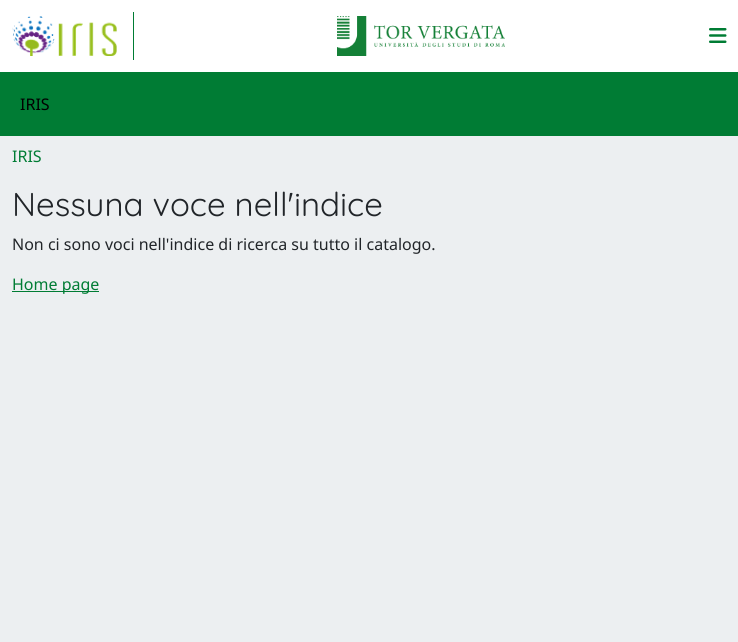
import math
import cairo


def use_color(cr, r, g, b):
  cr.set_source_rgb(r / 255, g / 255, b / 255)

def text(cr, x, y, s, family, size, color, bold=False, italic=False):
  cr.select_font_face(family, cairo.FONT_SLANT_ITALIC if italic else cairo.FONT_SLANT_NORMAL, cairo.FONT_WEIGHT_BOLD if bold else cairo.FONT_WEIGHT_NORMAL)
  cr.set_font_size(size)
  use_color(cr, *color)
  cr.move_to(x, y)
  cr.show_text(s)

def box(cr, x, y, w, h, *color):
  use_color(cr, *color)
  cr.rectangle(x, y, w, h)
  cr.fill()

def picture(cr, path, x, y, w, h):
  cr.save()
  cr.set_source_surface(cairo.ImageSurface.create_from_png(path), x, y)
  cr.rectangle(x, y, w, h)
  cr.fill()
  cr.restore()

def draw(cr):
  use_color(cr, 236, 239, 241)
  cr.paint()
  box(cr, 0, 0, 738, 72, 255, 255, 255)
  box(cr, 133, 12, 1, 48, 0, 124, 52)
  picture(cr, "img_01.png", 12, 16, 105, 40)
  picture(cr, "img_02.png", 337, 16, 168, 40)
  picture(cr, "img_03.png", 709, 28, 18, 15)
  box(cr, 0, 72, 738, 64, 0, 124, 52)
  box(cr, 12, 291, 87, 1, 0, 124, 52)
  text(cr, 20, 110, "IRIS", "Noto Sans", 16, (0, 0, 0))
  text(cr, 12, 162, "IRIS", "Noto Sans", 16, (0, 124, 52))
  text(cr, 12, 216, "Nessuna voce nell'indice", "Quicksand Light", 33, (33, 37, 41))
  text(cr, 12, 250, "Non ci sono voci nell'indice di ricerca su tutto il catalogo.", "Noto Sans", 16, (33, 37, 41))
  text(cr, 12, 290, "Home page", "Noto Sans", 16, (0, 124, 52))


surface = cairo.ImageSurface(cairo.FORMAT_RGB24, 738, 642)
cr = cairo.Context(surface)
options = cairo.FontOptions()
options.set_hint_metrics(cairo.HINT_METRICS_OFF)
options.set_hint_style(cairo.HINT_STYLE_NONE)
cr.set_font_options(options)
cr.set_miter_limit(4)
draw(cr)
surface.write_to_png("out.png")
